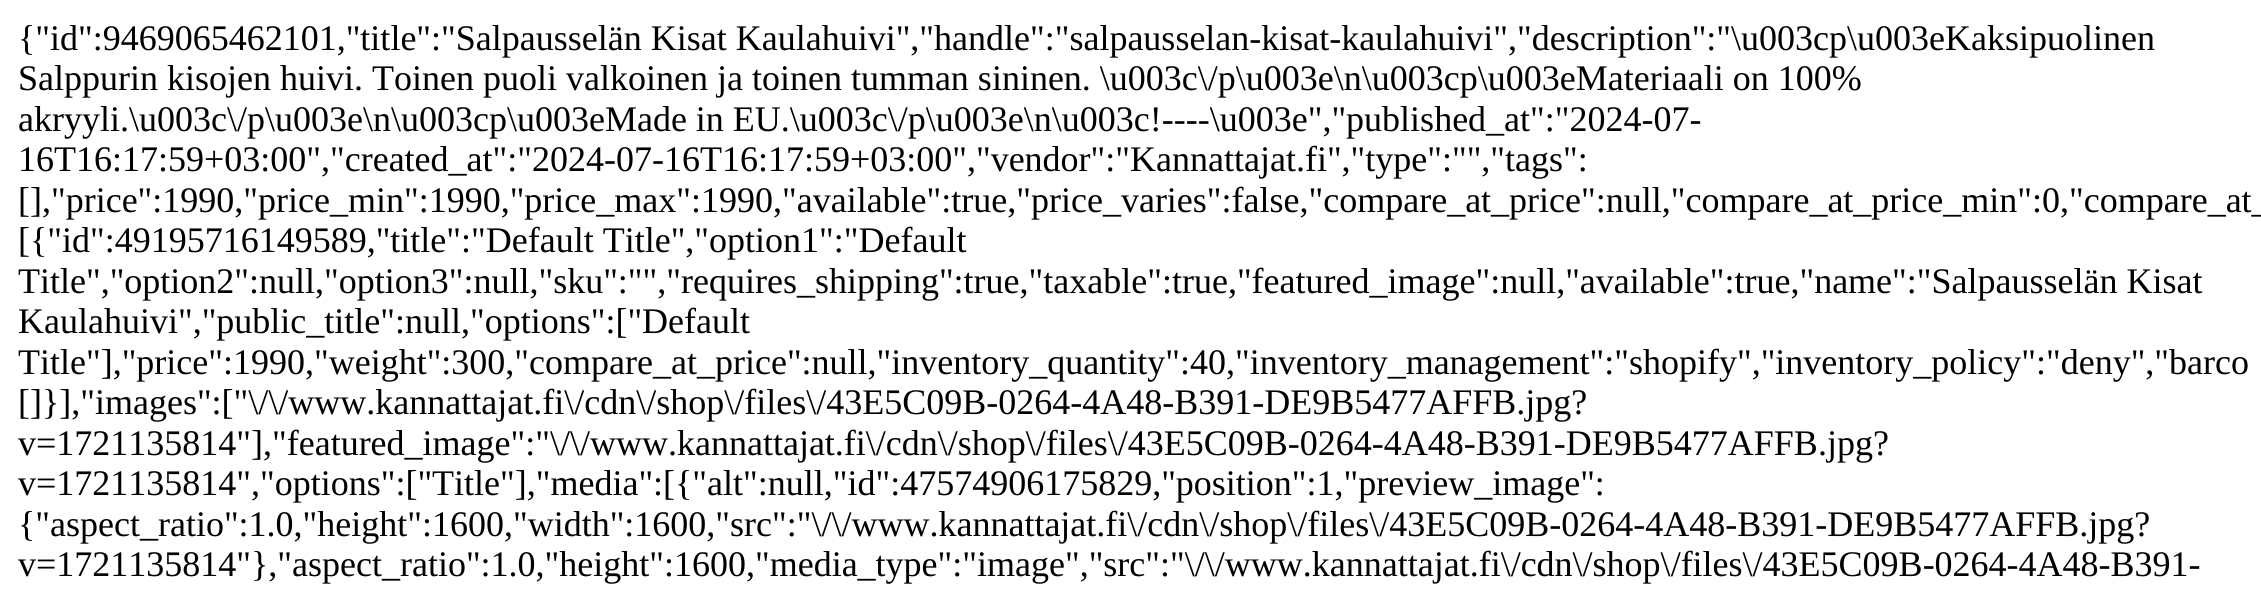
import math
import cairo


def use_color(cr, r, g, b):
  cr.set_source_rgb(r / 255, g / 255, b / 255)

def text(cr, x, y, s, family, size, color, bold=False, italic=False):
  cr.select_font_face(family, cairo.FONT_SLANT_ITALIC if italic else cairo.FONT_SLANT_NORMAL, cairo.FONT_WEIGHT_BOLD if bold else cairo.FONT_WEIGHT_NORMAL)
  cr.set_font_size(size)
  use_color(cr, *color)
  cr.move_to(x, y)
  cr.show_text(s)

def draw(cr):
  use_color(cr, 255, 255, 255)
  cr.paint()
  text(cr, 18, 50, "{\"id\":9469065462101,\"title\":\"Salpausselän Kisat Kaulahuivi\",\"handle\":\"salpausselan-kisat-kaulahuivi\",\"description\":\"\\u003cp\\u003eKaksipuolinen", "Liberation Serif", 36, (0, 0, 0))
  text(cr, 18, 90, "Salppurin kisojen huivi. Toinen puoli valkoinen ja toinen tumman sininen. \\u003c\\/p\\u003e\\n\\u003cp\\u003eMateriaali on 100%", "Liberation Serif", 36, (0, 0, 0))
  text(cr, 18, 131, "akryyli.\\u003c\\/p\\u003e\\n\\u003cp\\u003eMade in EU.\\u003c\\/p\\u003e\\n\\u003c!----\\u003e\",\"published_at\":\"2024-07-", "Liberation Serif", 36, (0, 0, 0))
  text(cr, 18, 171, "16T16:17:59+03:00\",\"created_at\":\"2024-07-16T16:17:59+03:00\",\"vendor\":\"Kannattajat.fi\",\"type\":\"\",\"tags\":", "Liberation Serif", 36, (0, 0, 0))
  text(cr, 18, 212, "[],\"price\":1990,\"price_min\":1990,\"price_max\":1990,\"available\":true,\"price_varies\":false,\"compare_at_price\":null,\"compare_at_price_min\":0,\"compare_at_", "Liberation Serif", 36, (0, 0, 0))
  text(cr, 18, 252, "[{\"id\":49195716149589,\"title\":\"Default Title\",\"option1\":\"Default", "Liberation Serif", 36, (0, 0, 0))
  text(cr, 18, 293, "Title\",\"option2\":null,\"option3\":null,\"sku\":\"\",\"requires_shipping\":true,\"taxable\":true,\"featured_image\":null,\"available\":true,\"name\":\"Salpausselän Kisat", "Liberation Serif", 36, (0, 0, 0))
  text(cr, 18, 333, "Kaulahuivi\",\"public_title\":null,\"options\":[\"Default", "Liberation Serif", 36, (0, 0, 0))
  text(cr, 18, 374, "Title\"],\"price\":1990,\"weight\":300,\"compare_at_price\":null,\"inventory_quantity\":40,\"inventory_management\":\"shopify\",\"inventory_policy\":\"deny\",\"barco", "Liberation Serif", 36, (0, 0, 0))
  text(cr, 18, 414, "[]}],\"images\":[\"\\/\\/www.kannattajat.fi\\/cdn\\/shop\\/files\\/43E5C09B-0264-4A48-B391-DE9B5477AFFB.jpg?", "Liberation Serif", 36, (0, 0, 0))
  text(cr, 18, 455, "v=1721135814\"],\"featured_image\":\"\\/\\/www.kannattajat.fi\\/cdn\\/shop\\/files\\/43E5C09B-0264-4A48-B391-DE9B5477AFFB.jpg?", "Liberation Serif", 36, (0, 0, 0))
  text(cr, 18, 495, "v=1721135814\",\"options\":[\"Title\"],\"media\":[{\"alt\":null,\"id\":47574906175829,\"position\":1,\"preview_image\":", "Liberation Serif", 36, (0, 0, 0))
  text(cr, 18, 536, "{\"aspect_ratio\":1.0,\"height\":1600,\"width\":1600,\"src\":\"\\/\\/www.kannattajat.fi\\/cdn\\/shop\\/files\\/43E5C09B-0264-4A48-B391-DE9B5477AFFB.jpg?", "Liberation Serif", 36, (0, 0, 0))
  text(cr, 18, 576, "v=1721135814\"},\"aspect_ratio\":1.0,\"height\":1600,\"media_type\":\"image\",\"src\":\"\\/\\/www.kannattajat.fi\\/cdn\\/shop\\/files\\/43E5C09B-0264-4A48-B391-", "Liberation Serif", 36, (0, 0, 0))


surface = cairo.ImageSurface(cairo.FORMAT_RGB24, 2261, 594)
cr = cairo.Context(surface)
options = cairo.FontOptions()
options.set_hint_metrics(cairo.HINT_METRICS_OFF)
options.set_hint_style(cairo.HINT_STYLE_NONE)
cr.set_font_options(options)
cr.set_miter_limit(4)
draw(cr)
surface.write_to_png("out.png")
